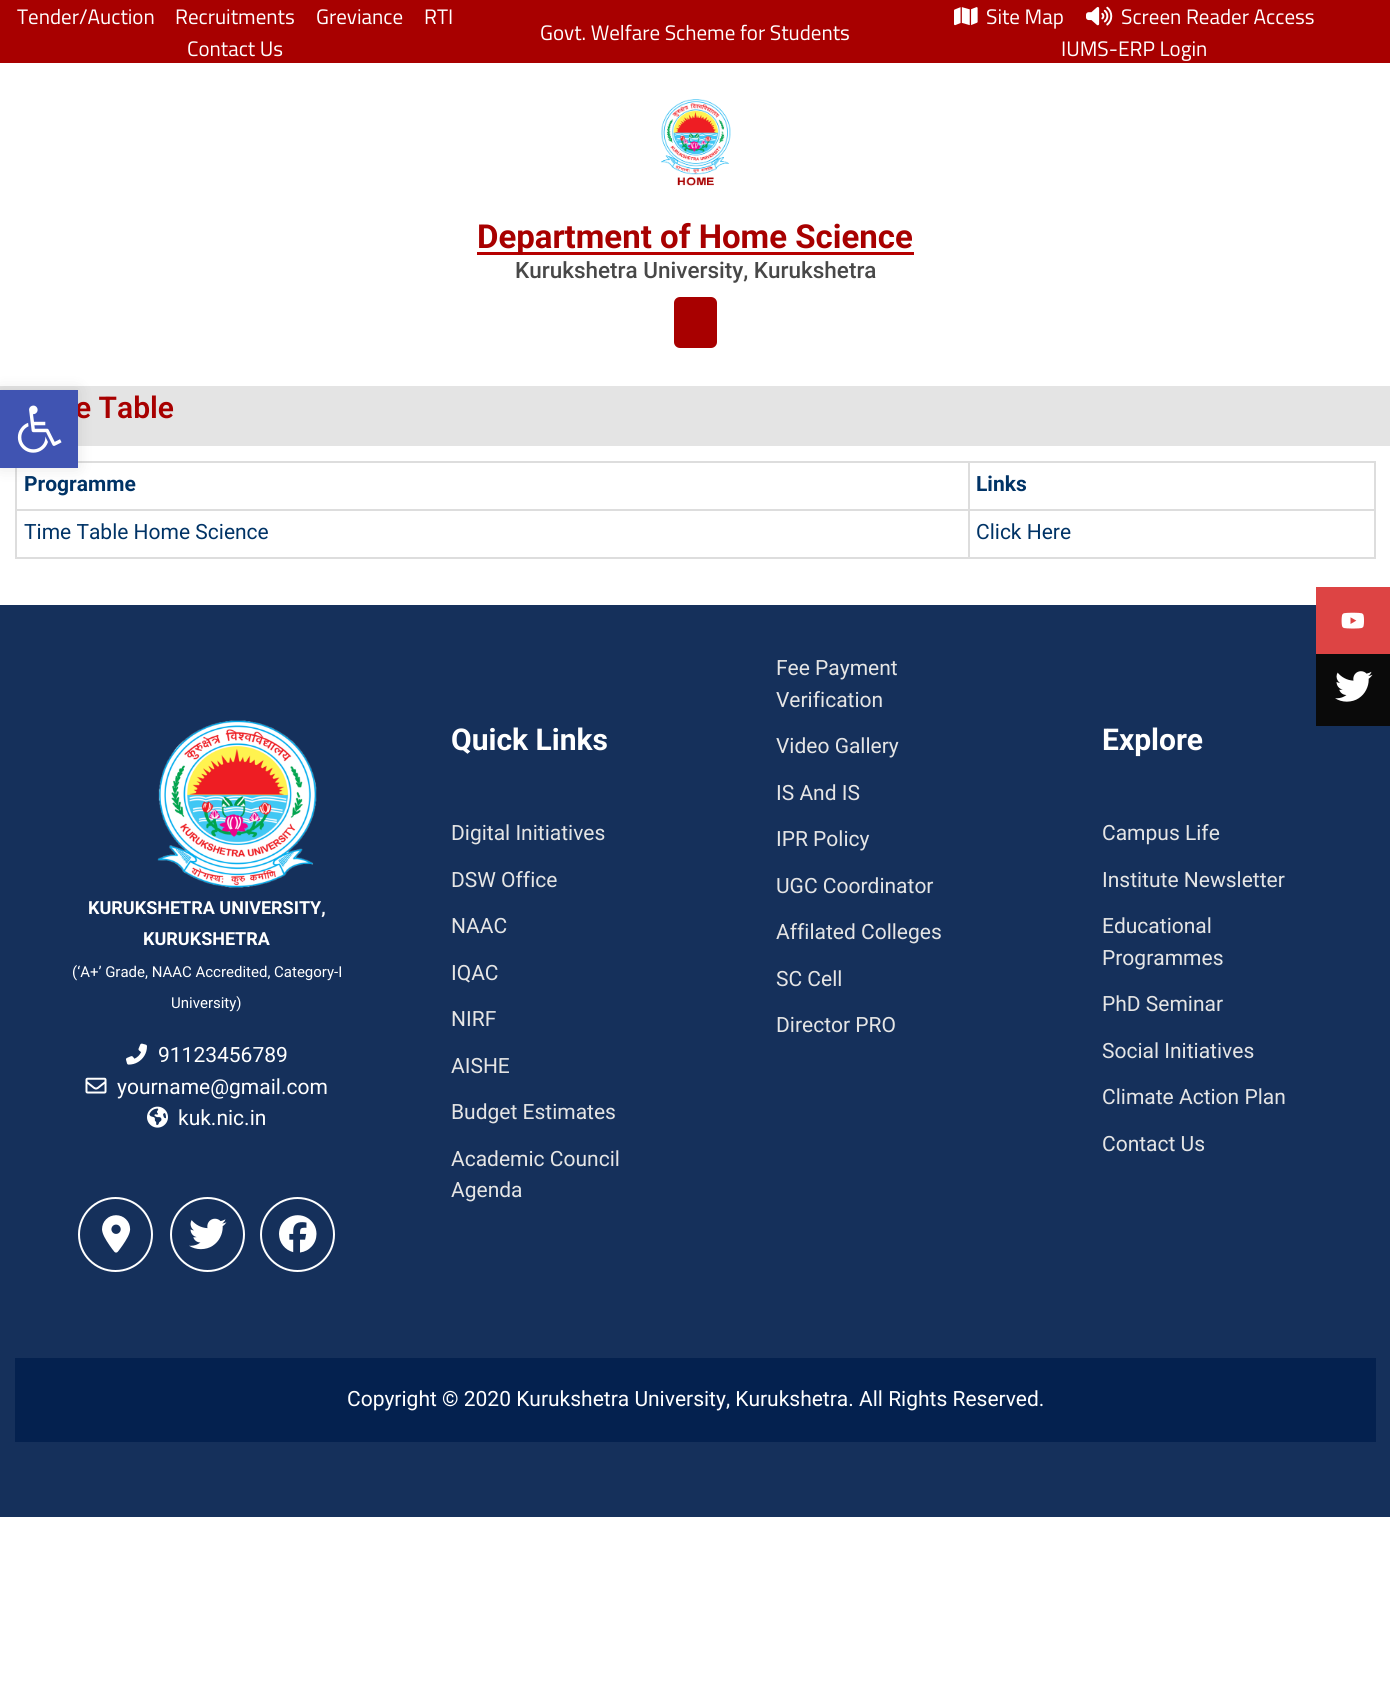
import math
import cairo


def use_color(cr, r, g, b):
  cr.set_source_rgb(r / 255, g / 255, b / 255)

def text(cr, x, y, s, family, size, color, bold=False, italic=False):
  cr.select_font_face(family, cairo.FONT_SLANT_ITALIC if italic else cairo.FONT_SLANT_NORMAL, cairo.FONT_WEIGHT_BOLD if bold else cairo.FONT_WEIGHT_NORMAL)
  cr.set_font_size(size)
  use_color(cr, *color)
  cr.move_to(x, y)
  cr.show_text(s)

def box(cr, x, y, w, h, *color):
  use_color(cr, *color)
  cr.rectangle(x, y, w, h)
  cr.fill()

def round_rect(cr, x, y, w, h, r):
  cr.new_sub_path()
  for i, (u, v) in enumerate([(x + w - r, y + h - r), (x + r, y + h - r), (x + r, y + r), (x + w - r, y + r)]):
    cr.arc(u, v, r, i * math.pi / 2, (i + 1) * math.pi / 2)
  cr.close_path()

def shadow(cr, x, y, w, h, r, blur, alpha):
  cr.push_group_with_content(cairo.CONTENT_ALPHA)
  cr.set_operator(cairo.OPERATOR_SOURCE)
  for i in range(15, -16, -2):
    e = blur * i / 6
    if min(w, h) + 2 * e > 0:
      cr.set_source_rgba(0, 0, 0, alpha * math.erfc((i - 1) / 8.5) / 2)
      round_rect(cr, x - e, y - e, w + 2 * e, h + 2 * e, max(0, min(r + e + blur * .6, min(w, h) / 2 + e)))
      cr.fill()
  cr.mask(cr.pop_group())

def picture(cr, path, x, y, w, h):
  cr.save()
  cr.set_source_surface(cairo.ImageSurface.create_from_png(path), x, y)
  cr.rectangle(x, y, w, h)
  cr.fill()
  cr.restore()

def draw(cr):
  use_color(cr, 255, 255, 255)
  cr.paint()
  box(cr, 0, 0, 1390, 63, 168, 0, 0)
  picture(cr, "img_01.png", 954, 7, 24, 19)
  picture(cr, "img_02.png", 1086, 6, 27, 20)
  picture(cr, "img_03.png", 661, 99, 70, 87)
  box(cr, 477, 252, 437, 3, 182, 0, 0)
  use_color(cr, 168, 0, 0)
  round_rect(cr, 674, 297, 43, 51, 6)
  cr.fill()
  box(cr, 0, 386, 1390, 60, 228, 228, 228)
  box(cr, 968, 461, 408, 2, 221, 221, 221)
  box(cr, 968, 509, 408, 2, 221, 221, 221)
  box(cr, 1374, 509, 2, 49, 221, 221, 221)
  box(cr, 968, 557, 408, 2, 221, 221, 221)
  box(cr, 968, 509, 2, 49, 221, 221, 221)
  box(cr, 15, 509, 954, 2, 221, 221, 221)
  box(cr, 968, 461, 2, 49, 221, 221, 221)
  box(cr, 78, 461, 891, 2, 221, 221, 221)
  box(cr, 1374, 461, 2, 49, 221, 221, 221)
  box(cr, 15, 557, 954, 2, 221, 221, 221)
  box(cr, 15, 461, 2, 97, 221, 221, 221)
  box(cr, 0, 605, 1390, 912, 21, 48, 91)
  picture(cr, "img_04.png", 157, 720, 160, 168)
  picture(cr, "img_05.png", 126, 1043, 21, 22)
  picture(cr, "img_06.png", 85, 1077, 22, 17)
  picture(cr, "img_07.png", 147, 1106, 21, 22)
  cr.arc(115.5, 1234.5, 36.5, 0, 2 * math.pi)
  use_color(cr, 255, 255, 255)
  cr.stroke()
  picture(cr, "img_08.png", 102, 1215, 29, 38)
  cr.arc(207.5, 1234.5, 36.5, 0, 2 * math.pi)
  cr.stroke()
  picture(cr, "img_09.png", 189, 1218, 38, 32)
  cr.arc(297.5, 1234.5, 36.5, 0, 2 * math.pi)
  cr.stroke()
  picture(cr, "img_10.png", 279, 1215, 38, 38)
  box(cr, 15, 1358, 1361, 84, 4, 33, 79)
  use_color(cr, 0, 0, 0)
  shadow(cr, 0, 390, 78, 78, 0, 7.5, 0.1)
  box(cr, 1316, 587, 74, 67, 221, 68, 68)
  picture(cr, "img_12.png", 1341, 612, 23, 17)
  box(cr, 1316, 654, 74, 72, 10, 10, 10)
  picture(cr, "img_13.png", 1335, 671, 38, 31)
  text(cr, 17, 24, "Tender/Auction", "Titillium Web", 21, (255, 255, 255))
  text(cr, 175, 24, "Recruitments", "Titillium Web", 21, (255, 255, 255))
  text(cr, 316, 24, "Greviance", "Titillium Web", 21, (255, 255, 255))
  text(cr, 424, 24, "RTI", "Titillium Web", 21, (255, 255, 255))
  text(cr, 187, 56, "Contact Us", "Titillium Web", 21, (255, 255, 255))
  text(cr, 540, 40, "Govt. Welfare Scheme for Students", "Titillium Web", 21, (255, 255, 255))
  text(cr, 986, 24, "Site Map", "Titillium Web", 21, (255, 255, 255))
  text(cr, 1121, 24, "Screen Reader Access", "Titillium Web", 21, (255, 255, 255))
  text(cr, 1061, 56, "IUMS-ERP Login", "Titillium Web", 21, (255, 255, 255))
  text(cr, 477, 248, "Department of Home Science", "Roboto", 33, (168, 0, 0), bold=True)
  text(cr, 515, 278, "Kurukshetra University, Kurukshetra", "Roboto Medium", 22.5, (72, 72, 72))
  text(cr, 75, 418, "e Table", "Roboto SemiBold", 30, (168, 0, 0))
  text(cr, 24, 491, "Programme", "Roboto", 21, (0, 51, 102), bold=True)
  text(cr, 976, 491, "Links", "Roboto", 21, (0, 51, 102), bold=True)
  text(cr, 24, 539, "Time Table Home Science", "Roboto", 21, (0, 51, 102))
  text(cr, 976, 539, "Click Here", "Roboto", 21, (0, 51, 102))
  text(cr, 88, 914, "KURUKSHETRA UNIVERSITY,", "Roboto", 18, (255, 255, 255), bold=True)
  text(cr, 143, 945, "KURUKSHETRA", "Roboto", 18, (255, 255, 255), bold=True)
  text(cr, 72, 977, "(‘A+’ Grade, NAAC Accredited, Category-I", "Roboto", 15, (255, 255, 255))
  text(cr, 171, 1008, "University)", "Roboto", 15, (255, 255, 255))
  text(cr, 158, 1062, "91123456789", "Roboto", 21, (255, 255, 255))
  text(cr, 117, 1094, "yourname@gmail.com", "Roboto", 21, (255, 255, 255))
  text(cr, 178, 1125, "kuk.nic.in", "Roboto", 21, (255, 255, 255))
  text(cr, 451, 750, "Quick Links", "Roboto", 30, (255, 255, 255), bold=True)
  text(cr, 451, 840, "Digital Initiatives", "Roboto", 21, (229, 229, 229))
  text(cr, 451, 887, "DSW Office", "Roboto", 21, (229, 229, 229))
  text(cr, 451, 933, "NAAC", "Roboto", 21, (229, 229, 229))
  text(cr, 451, 980, "IQAC", "Roboto", 21, (229, 229, 229))
  text(cr, 451, 1026, "NIRF", "Roboto", 21, (229, 229, 229))
  text(cr, 451, 1073, "AISHE", "Roboto", 21, (229, 229, 229))
  text(cr, 451, 1119, "Budget Estimates", "Roboto", 21, (229, 229, 229))
  text(cr, 451, 1166, "Academic Council", "Roboto", 21, (229, 229, 229))
  text(cr, 451, 1197, "Agenda", "Roboto", 21, (229, 229, 229))
  text(cr, 776, 675, "Fee Payment", "Roboto", 21, (229, 229, 229))
  text(cr, 776, 707, "Verification", "Roboto", 21, (229, 229, 229))
  text(cr, 776, 753, "Video Gallery", "Roboto", 21, (229, 229, 229))
  text(cr, 776, 800, "IS And IS", "Roboto", 21, (229, 229, 229))
  text(cr, 776, 846, "IPR Policy", "Roboto", 21, (229, 229, 229))
  text(cr, 776, 893, "UGC Coordinator", "Roboto", 21, (229, 229, 229))
  text(cr, 776, 939, "Affilated Colleges", "Roboto", 21, (229, 229, 229))
  text(cr, 776, 986, "SC Cell", "Roboto", 21, (229, 229, 229))
  text(cr, 776, 1032, "Director PRO", "Roboto", 21, (229, 229, 229))
  text(cr, 1102, 750, "Explore", "Roboto", 30, (255, 255, 255), bold=True)
  text(cr, 1102, 840, "Campus Life", "Roboto", 21, (229, 229, 229))
  text(cr, 1102, 887, "Institute Newsletter", "Roboto", 21, (229, 229, 229))
  text(cr, 1102, 933, "Educational", "Roboto", 21, (229, 229, 229))
  text(cr, 1102, 965, "Programmes", "Roboto", 21, (229, 229, 229))
  text(cr, 1102, 1011, "PhD Seminar", "Roboto", 21, (229, 229, 229))
  text(cr, 1102, 1058, "Social Initiatives", "Roboto", 21, (229, 229, 229))
  text(cr, 1102, 1104, "Climate Action Plan", "Roboto", 21, (229, 229, 229))
  text(cr, 1102, 1151, "Contact Us", "Roboto", 21, (229, 229, 229))
  text(cr, 347, 1406, "Copyright © 2020 Kurukshetra University, Kurukshetra. All Rights Reserved.", "Roboto", 21, (255, 255, 255))
  box(cr, 0, 390, 78, 78, 64, 84, 178)
  picture(cr, "img_11.png", 17, 405, 45, 48)


surface = cairo.ImageSurface(cairo.FORMAT_RGB24, 1390, 1706)
cr = cairo.Context(surface)
options = cairo.FontOptions()
options.set_hint_metrics(cairo.HINT_METRICS_OFF)
options.set_hint_style(cairo.HINT_STYLE_NONE)
cr.set_font_options(options)
cr.set_miter_limit(4)
draw(cr)
surface.write_to_png("out.png")
